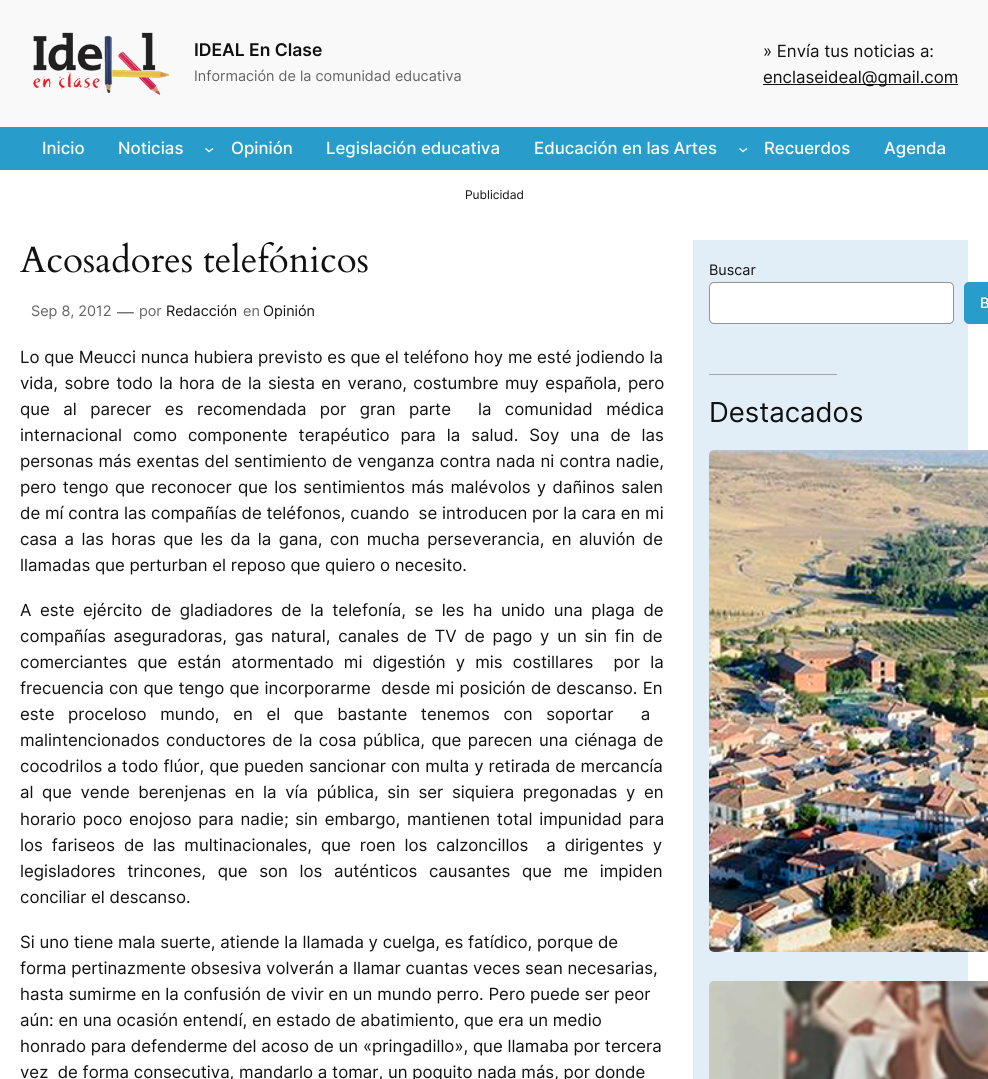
import math
import cairo


def use_color(cr, r, g, b):
  cr.set_source_rgb(r / 255, g / 255, b / 255)

def text(cr, x, y, s, family, size, color, bold=False, italic=False):
  cr.select_font_face(family, cairo.FONT_SLANT_ITALIC if italic else cairo.FONT_SLANT_NORMAL, cairo.FONT_WEIGHT_BOLD if bold else cairo.FONT_WEIGHT_NORMAL)
  cr.set_font_size(size)
  use_color(cr, *color)
  cr.move_to(x, y)
  cr.show_text(s)

def spaced_text(cr, x, y, s, letter, word):
  cr.move_to(x, y)
  for ch in s:
    cr.show_text(ch)
    cr.rel_move_to(letter + word * (ch == ' '), 0)

def box(cr, x, y, w, h, *color):
  use_color(cr, *color)
  cr.rectangle(x, y, w, h)
  cr.fill()

def round_rect(cr, x, y, w, h, r):
  cr.new_sub_path()
  for i, (u, v) in enumerate([(x + w - r, y + h - r), (x + r, y + h - r), (x + r, y + r), (x + w - r, y + r)]):
    cr.arc(u, v, r, i * math.pi / 2, (i + 1) * math.pi / 2)
  cr.close_path()

def picture(cr, path, x, y, w, h):
  cr.save()
  cr.set_source_surface(cairo.ImageSurface.create_from_png(path), x, y)
  cr.rectangle(x, y, w, h)
  cr.fill()
  cr.restore()

def draw(cr):
  use_color(cr, 249, 249, 249)
  cr.paint()
  picture(cr, "img_01.png", 33, 32, 136, 63)
  box(cr, 763, 84, 195, 1, 17, 17, 17)
  box(cr, 0, 127, 988, 43, 40, 157, 204)
  cr.new_path()
  cr.move_to(205.5, 148.5)
  cr.line_to(209, 151.5)
  cr.line_to(213, 148.5)
  use_color(cr, 255, 255, 255)
  cr.set_line_width(1.3)
  cr.stroke()
  cr.new_path()
  cr.move_to(739.5, 148.5)
  cr.line_to(743, 151.5)
  cr.line_to(747, 148.5)
  cr.stroke()
  box(cr, 0, 170, 988, 909, 255, 255, 255)
  picture(cr, "img_02.png", 20, 241, 348, 32)
  box(cr, 693, 240, 275, 839, 226, 238, 247)
  use_color(cr, 255, 255, 255)
  round_rect(cr, 709.5, 282.5, 244, 41, 4.5)
  cr.fill_preserve()
  use_color(cr, 148, 148, 148)
  cr.set_line_width(1)
  cr.stroke()
  use_color(cr, 40, 157, 204)
  round_rect(cr, 964, 282, 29, 42, 5)
  cr.fill()
  box(cr, 709, 374, 128, 1, 164, 164, 164)
  picture(cr, "img_03.png", 709, 450, 279, 502)
  picture(cr, "img_04.png", 709, 981, 279, 98)
  text(cr, 194, 56, "IDEAL En Clase", "Inter SemiBold", 17.5, (17, 17, 17))
  text(cr, 194, 81, "Información de la comunidad educativa", "Inter", 14.4, (99, 99, 99))
  text(cr, 763, 57, "» Envía tus noticias a:", "Inter", 16.8, (17, 17, 17))
  text(cr, 763, 83, "enclaseideal@gmail.com", "Inter", 16.8, (17, 17, 17))
  text(cr, 42, 154, "Inicio", "Inter Medium", 16.8, (255, 255, 255))
  text(cr, 118, 154, "Noticias", "Inter Medium", 16.8, (255, 255, 255))
  text(cr, 231, 154, "Opinión", "Inter Medium", 16.8, (255, 255, 255))
  text(cr, 326, 154, "Legislación educativa", "Inter Medium", 16.8, (255, 255, 255))
  text(cr, 534, 154, "Educación en las Artes", "Inter Medium", 16.8, (255, 255, 255))
  text(cr, 764, 154, "Recuerdos", "Inter Medium", 16.8, (255, 255, 255))
  text(cr, 884, 154, "Agenda", "Inter Medium", 16.8, (255, 255, 255))
  text(cr, 465, 199, "Publicidad", "Inter", 12, (17, 17, 17))
  text(cr, 31, 316, "Sep 8, 2012", "Inter", 14.4, (99, 99, 99))
  text(cr, 117, 318, "—", "Inter", 16.8, (99, 99, 99))
  text(cr, 139, 316, "por", "Inter", 14.4, (99, 99, 99))
  text(cr, 166, 316, "Redacción", "Inter", 14.4, (17, 17, 17))
  text(cr, 243, 316, "en", "Inter", 14.4, (99, 99, 99))
  text(cr, 263, 316, "Opinión", "Inter", 14.4, (17, 17, 17))
  text(cr, 20, 363, "Lo que Meucci nunca hubiera previsto es que el teléfono hoy me esté jodiendo la", "Inter", 16.8, (17, 17, 17))
  spaced_text(cr, 20, 389, "vida, sobre todo la hora de la siesta en verano, costumbre muy española, pero", 0, 1.75)
  spaced_text(cr, 20, 415, "que al parecer es recomendada por gran parte  la comunidad médica", 0, 8.75)
  spaced_text(cr, 20, 441, "internacional como componente terapéutico para la salud. Soy una de las", 0, 6.25)
  spaced_text(cr, 20, 467, "personas más exentas del sentimiento de venganza contra nada ni contra nadie,", 0, 0.5)
  spaced_text(cr, 20, 493, "pero tengo que reconocer que los sentimientos más malévolos y dañinos salen", 0, 1.6)
  text(cr, 20, 519, "de mí contra las compañías de teléfonos, cuando  se introducen por la cara en mi", "Inter", 16.8, (17, 17, 17))
  spaced_text(cr, 20, 545, "casa a las horas que les da la gana, con mucha perseverancia, en aluvión de", 0, 2.75)
  text(cr, 20, 571, "llamadas que perturban el reposo que quiero o necesito.", "Inter", 16.8, (17, 17, 17))
  spaced_text(cr, 20, 616, "A este ejército de gladiadores de la telefonía, se les ha unido una plaga de", 0, 3.9)
  spaced_text(cr, 20, 642, "compañías aseguradoras, gas natural, canales de TV de pago y un sin fin de", 0, 3)
  spaced_text(cr, 20, 668, "comerciantes que están atormentado mi digestión y mis costillares  por la", 0, 5.4)
  spaced_text(cr, 20, 694, "frecuencia con que tengo que incorporarme  desde mi posición de descanso. En", 0, 0.5)
  spaced_text(cr, 20, 720, "este proceloso mundo, en el que bastante tenemos con soportar  a", 0, 8.9)
  spaced_text(cr, 20, 746, "malintencionados conductores de la cosa pública, que parecen una ciénaga de", 0, 1.75)
  spaced_text(cr, 20, 772, "cocodrilos a todo flúor, que pueden sancionar con multa y retirada de mercancía", 0, 0.3)
  spaced_text(cr, 20, 798, "al que vende berenjenas en la vía pública, sin ser siquiera pregonadas y en", 0, 3.9)
  spaced_text(cr, 20, 825, "horario poco enojoso para nadie; sin embargo, mantienen total impunidad para", 0, 2)
  spaced_text(cr, 20, 851, "los fariseos de las multinacionales, que roen los calzoncillos  a dirigentes y", 0, 4.25)
  spaced_text(cr, 20, 877, "legisladores trincones, que son los auténticos causantes que me impiden", 0, 7)
  text(cr, 20, 903, "conciliar el descanso.", "Inter", 16.8, (17, 17, 17))
  text(cr, 20, 948, "Si uno tiene mala suerte, atiende la llamada y cuelga, es fatídico, porque de", "Inter", 16.8, (17, 17, 17))
  text(cr, 20, 974, "forma pertinazmente obsesiva volverán a llamar cuantas veces sean necesarias,", "Inter", 16.8, (17, 17, 17))
  text(cr, 20, 1000, "hasta sumirme en la confusión de vivir en un mundo perro. Pero puede ser peor", "Inter", 16.8, (17, 17, 17))
  text(cr, 20, 1026, "aún: en una ocasión entendí, en estado de abatimiento, que era un medio", "Inter", 16.8, (17, 17, 17))
  text(cr, 20, 1052, "honrado para defenderme del acoso de un «pringadillo», que llamaba por tercera", "Inter", 16.8, (17, 17, 17))
  text(cr, 20, 1078, "vez  de forma consecutiva, mandarlo a tomar, un poquito nada más, por donde", "Inter", 16.8, (17, 17, 17))
  text(cr, 709, 275, "Buscar", "Inter", 14.4, (17, 17, 17))
  text(cr, 980, 308, "B", "Inter Medium", 14.4, (255, 255, 255))
  text(cr, 709, 422, "Destacados", "Inter", 27.5, (17, 17, 17))


surface = cairo.ImageSurface(cairo.FORMAT_RGB24, 988, 1079)
cr = cairo.Context(surface)
options = cairo.FontOptions()
options.set_hint_metrics(cairo.HINT_METRICS_OFF)
options.set_hint_style(cairo.HINT_STYLE_NONE)
cr.set_font_options(options)
cr.set_miter_limit(4)
draw(cr)
surface.write_to_png("out.png")
